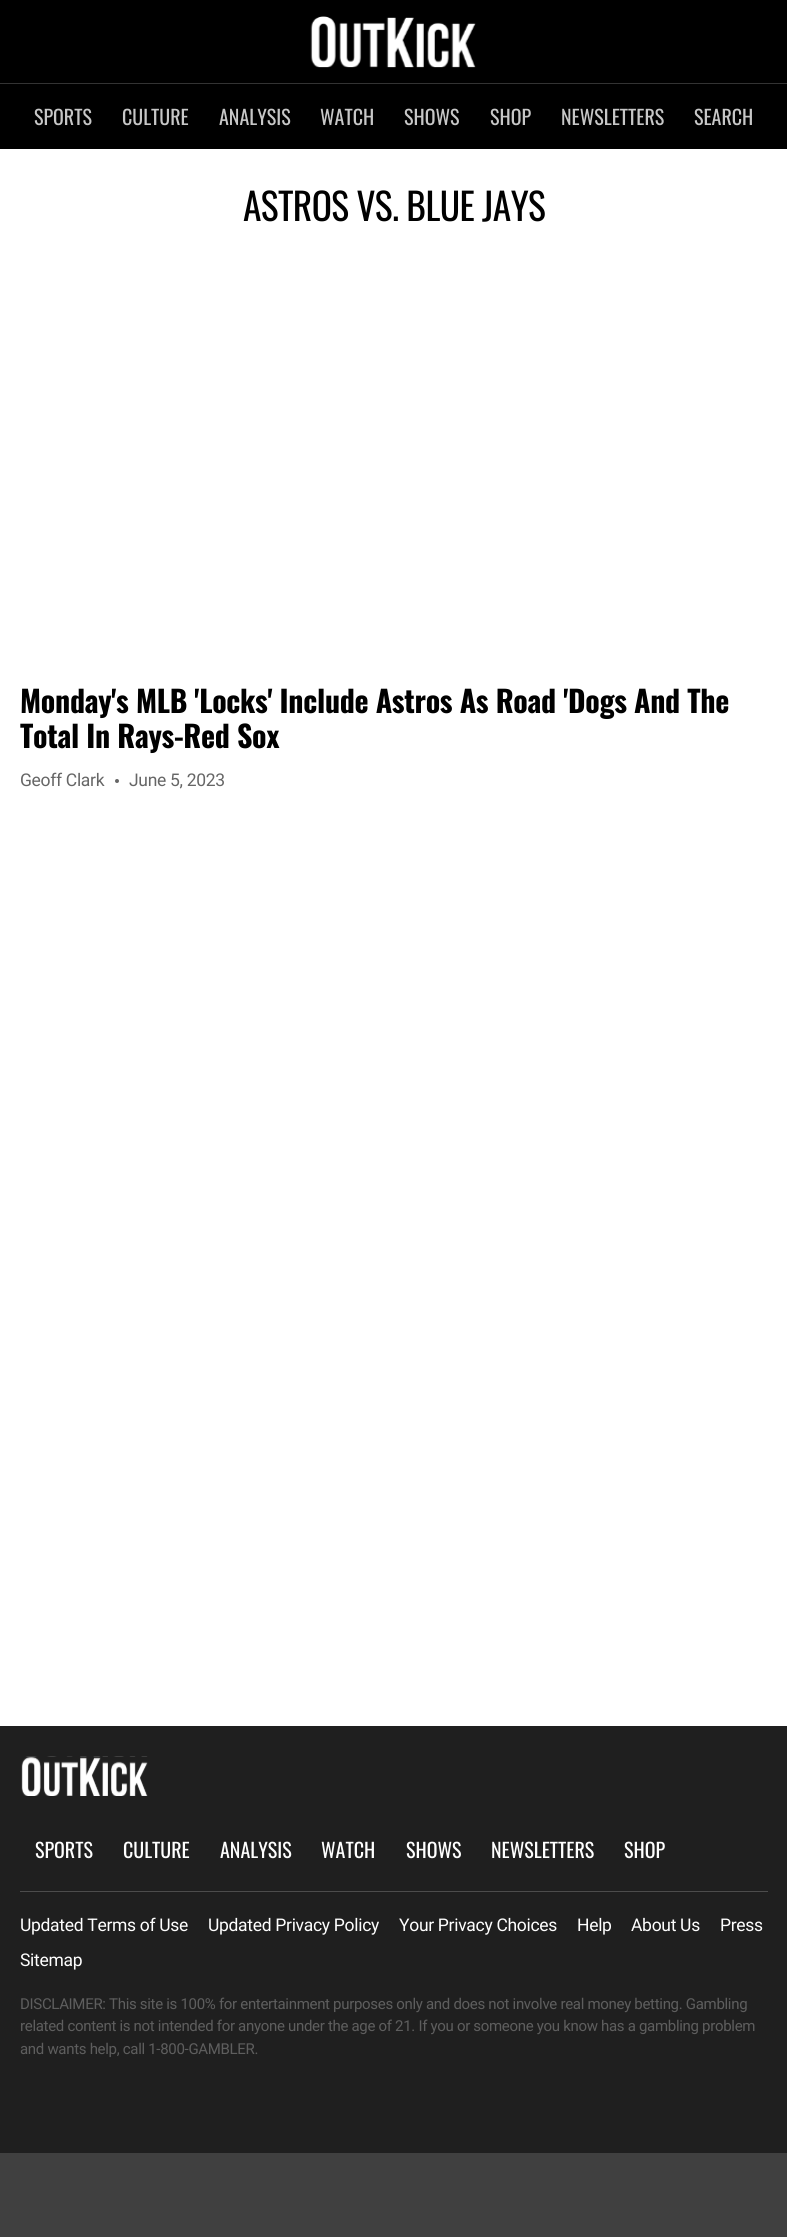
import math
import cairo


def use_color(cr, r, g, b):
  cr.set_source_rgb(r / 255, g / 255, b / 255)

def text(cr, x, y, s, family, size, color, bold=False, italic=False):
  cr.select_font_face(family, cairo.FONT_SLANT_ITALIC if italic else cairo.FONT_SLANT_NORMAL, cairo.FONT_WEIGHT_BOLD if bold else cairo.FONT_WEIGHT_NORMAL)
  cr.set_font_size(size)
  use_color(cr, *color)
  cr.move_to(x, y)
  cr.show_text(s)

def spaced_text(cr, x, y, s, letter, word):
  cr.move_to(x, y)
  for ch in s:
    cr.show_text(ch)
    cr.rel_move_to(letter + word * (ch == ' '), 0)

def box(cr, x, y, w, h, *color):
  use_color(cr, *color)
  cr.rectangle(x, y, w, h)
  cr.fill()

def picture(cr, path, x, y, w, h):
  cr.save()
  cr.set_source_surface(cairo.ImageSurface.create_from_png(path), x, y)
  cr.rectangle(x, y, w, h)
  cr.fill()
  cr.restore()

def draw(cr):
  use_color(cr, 255, 255, 255)
  cr.paint()
  box(cr, 0, 0, 787, 149, 0, 0, 0)
  picture(cr, "img_01.png", 310, 16, 166, 52)
  box(cr, 0, 83, 787, 1, 51, 51, 51)
  use_color(cr, 102, 102, 102)
  cr.arc(117, 781, 2, 0, 2 * math.pi)
  cr.fill()
  box(cr, 0, 1726, 787, 427, 31, 31, 31)
  picture(cr, "img_02.png", 21, 1756, 127, 40)
  box(cr, 20, 1891, 748, 1, 76, 76, 76)
  box(cr, 0, 2153, 787, 84, 64, 64, 64)
  text(cr, 34, 125, "SPORTS", "Oswald", 20, (199, 199, 199))
  text(cr, 122, 125, "CULTURE", "Oswald", 20, (199, 199, 199))
  text(cr, 219, 125, "ANALYSIS", "Oswald", 20, (199, 199, 199))
  text(cr, 320, 125, "WATCH", "Oswald", 20, (199, 199, 199))
  text(cr, 404, 125, "SHOWS", "Oswald", 20, (199, 199, 199))
  text(cr, 490, 125, "SHOP", "Oswald", 20, (199, 199, 199))
  text(cr, 561, 125, "NEWSLETTERS", "Oswald", 20, (199, 199, 199))
  text(cr, 694, 125, "SEARCH", "Oswald", 20, (199, 199, 199))
  cr.set_font_size(37.5)
  use_color(cr, 0, 0, 0)
  spaced_text(cr, 243, 221, "ASTROS VS. BLUE JAYS", -0.6, 0)
  cr.select_font_face("Oswald", cairo.FONT_SLANT_NORMAL, cairo.FONT_WEIGHT_BOLD)
  cr.set_font_size(30)
  spaced_text(cr, 20, 713, "Monday's MLB 'Locks' Include Astros As Road 'Dogs And The", -0.31, 0)
  spaced_text(cr, 20, 748, "Total In Rays-Red Sox", -0.31, 0)
  cr.select_font_face("Roboto")
  cr.set_font_size(17.5)
  use_color(cr, 102, 102, 102)
  spaced_text(cr, 20, 786, "Geoff Clark", -0.31, 0)
  spaced_text(cr, 129, 786, "June 5, 2023", -0.31, 0)
  text(cr, 35, 1858, "SPORTS", "Oswald", 20, (255, 255, 255))
  text(cr, 123, 1858, "CULTURE", "Oswald", 20, (255, 255, 255))
  text(cr, 220, 1858, "ANALYSIS", "Oswald", 20, (255, 255, 255))
  text(cr, 321, 1858, "WATCH", "Oswald", 20, (255, 255, 255))
  text(cr, 406, 1858, "SHOWS", "Oswald", 20, (255, 255, 255))
  text(cr, 491, 1858, "NEWSLETTERS", "Oswald", 20, (255, 255, 255))
  text(cr, 624, 1858, "SHOP", "Oswald", 20, (255, 255, 255))
  cr.select_font_face("Roboto")
  cr.set_font_size(17.5)
  spaced_text(cr, 20, 1931, "Updated Terms of Use", -0.31, 0)
  spaced_text(cr, 208, 1931, "Updated Privacy Policy", -0.31, 0)
  spaced_text(cr, 399, 1931, "Your Privacy Choices", -0.31, 0)
  spaced_text(cr, 577, 1931, "Help", -0.31, 0)
  spaced_text(cr, 631, 1931, "About Us", -0.31, 0)
  spaced_text(cr, 720, 1931, "Press", -0.31, 0)
  spaced_text(cr, 20, 1966, "Sitemap", -0.31, 0)
  cr.set_font_size(15)
  use_color(cr, 94, 94, 94)
  spaced_text(cr, 20, 2009, "DISCLAIMER: This site is 100% for entertainment purposes only and does not involve real money betting. Gambling", -0.31, 0)
  spaced_text(cr, 20, 2031, "related content is not intended for anyone under the age of 21. If you or someone you know has a gambling problem", -0.31, 0)
  spaced_text(cr, 20, 2054, "and wants help, call 1-800-GAMBLER.", -0.31, 0)


surface = cairo.ImageSurface(cairo.FORMAT_RGB24, 787, 2237)
cr = cairo.Context(surface)
options = cairo.FontOptions()
options.set_hint_metrics(cairo.HINT_METRICS_OFF)
options.set_hint_style(cairo.HINT_STYLE_NONE)
cr.set_font_options(options)
cr.set_miter_limit(4)
draw(cr)
surface.write_to_png("out.png")
